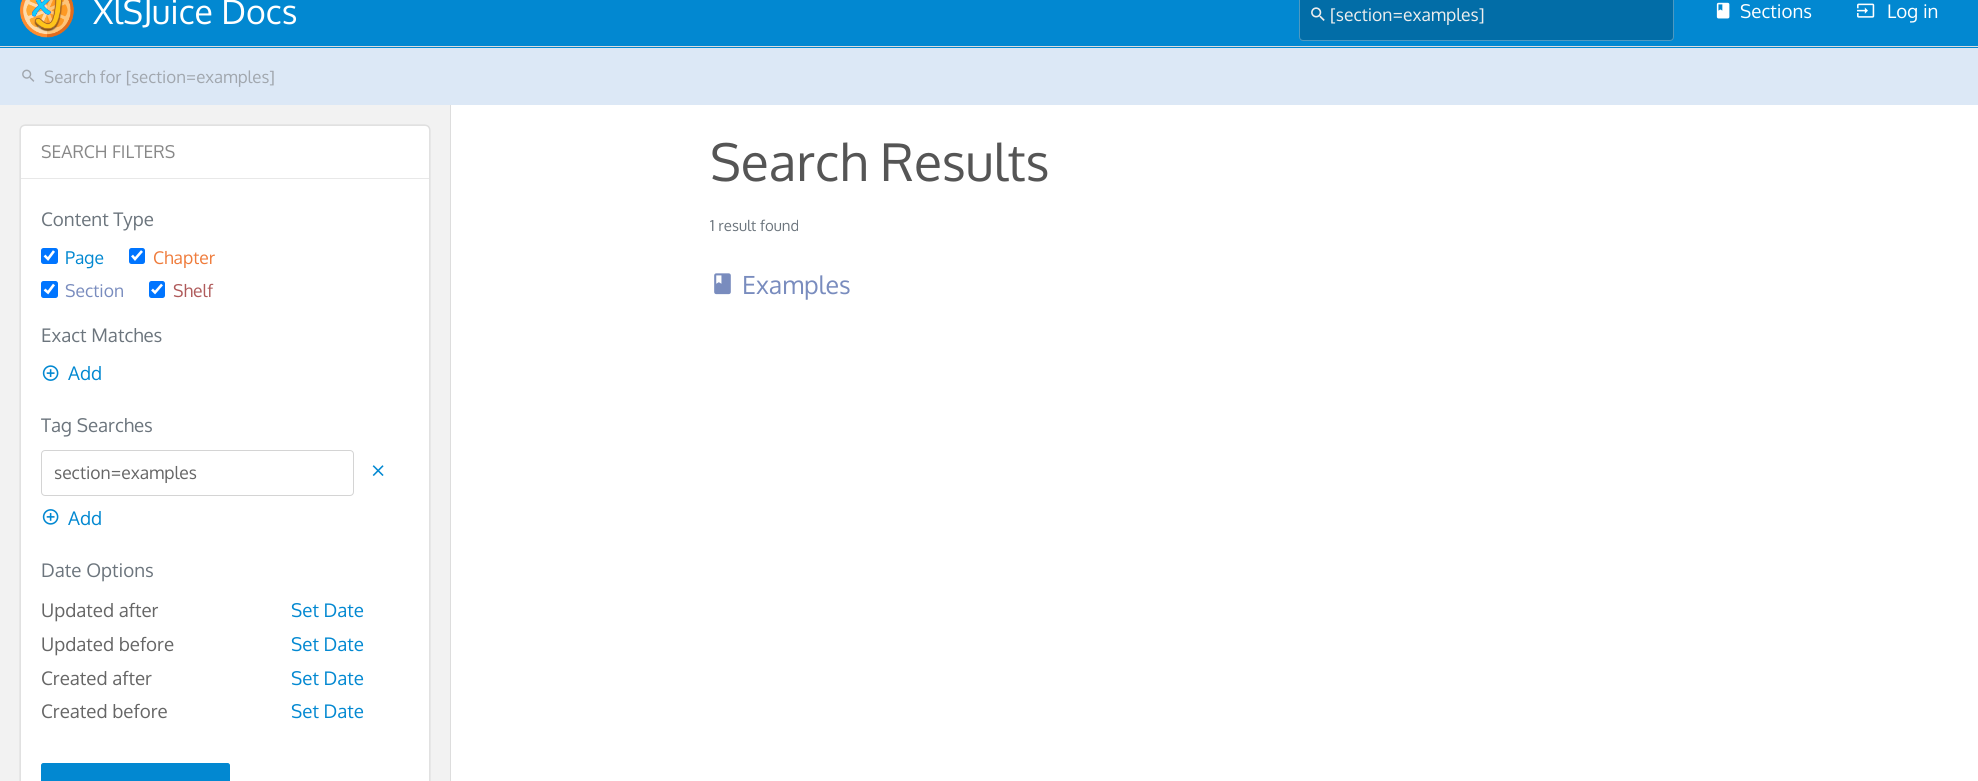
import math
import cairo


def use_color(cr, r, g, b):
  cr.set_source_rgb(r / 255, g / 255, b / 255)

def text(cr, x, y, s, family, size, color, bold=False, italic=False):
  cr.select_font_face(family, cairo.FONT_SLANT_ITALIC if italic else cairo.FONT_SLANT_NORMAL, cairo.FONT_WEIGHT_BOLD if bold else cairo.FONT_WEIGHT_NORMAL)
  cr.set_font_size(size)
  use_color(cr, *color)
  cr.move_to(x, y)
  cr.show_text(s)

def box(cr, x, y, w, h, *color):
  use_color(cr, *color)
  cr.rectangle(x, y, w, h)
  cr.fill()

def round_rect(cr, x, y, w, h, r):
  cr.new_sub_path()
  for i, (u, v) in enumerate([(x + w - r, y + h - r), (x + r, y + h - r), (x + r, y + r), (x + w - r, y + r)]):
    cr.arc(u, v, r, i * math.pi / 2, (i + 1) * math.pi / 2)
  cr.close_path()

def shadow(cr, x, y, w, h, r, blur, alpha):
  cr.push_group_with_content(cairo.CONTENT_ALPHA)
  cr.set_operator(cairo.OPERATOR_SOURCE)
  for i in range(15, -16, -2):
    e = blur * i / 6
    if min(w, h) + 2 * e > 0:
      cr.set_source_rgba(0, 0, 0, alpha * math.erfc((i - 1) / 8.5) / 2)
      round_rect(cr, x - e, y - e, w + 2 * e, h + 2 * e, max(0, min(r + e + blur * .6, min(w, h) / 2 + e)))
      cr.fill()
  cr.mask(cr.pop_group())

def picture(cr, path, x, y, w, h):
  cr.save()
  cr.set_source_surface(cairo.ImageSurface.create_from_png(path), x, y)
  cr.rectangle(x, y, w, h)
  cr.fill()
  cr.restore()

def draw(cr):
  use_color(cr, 255, 255, 255)
  cr.paint()
  box(cr, 0, 0, 1978, 48, 2, 136, 209)
  box(cr, 0, 46, 1978, 1, 221, 221, 221)
  picture(cr, "img_01.png", 20, 0, 54, 38)
  use_color(cr, 2, 109, 167)
  round_rect(cr, 1299, -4, 375, 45, 4)
  cr.fill()
  round_rect(cr, 1299.5, -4.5, 374, 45, 3.5)
  cr.set_source_rgba(1, 1, 1, 0.3)
  cr.set_line_width(1)
  cr.stroke()
  picture(cr, "img_02.png", 1311, 7, 14, 14)
  picture(cr, "img_03.png", 1716, 2, 14, 17)
  picture(cr, "img_04.png", 1857, 3, 18, 15)
  box(cr, 0, 48, 1978, 57, 220, 232, 246)
  picture(cr, "img_05.png", 22, 69, 13, 13)
  box(cr, 0, 105, 450, 676, 242, 242, 242)
  use_color(cr, 0, 0, 0)
  shadow(cr, 20, 125, 410, 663, 5, 0.5, 0.2)
  use_color(cr, 255, 255, 255)
  round_rect(cr, 20, 125, 410, 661, 5)
  cr.fill()
  round_rect(cr, 20.5, 125.5, 409, 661, 4.5)
  cr.set_source_rgba(0, 0, 0, 0.12)
  cr.stroke()
  box(cr, 21, 178, 408, 1, 232, 232, 232)
  use_color(cr, 0, 117, 255)
  round_rect(cr, 41, 248, 17, 16, 2.5)
  cr.fill()
  cr.new_path()
  cr.move_to(44.5, 255.5)
  cr.line_to(48, 259)
  cr.line_to(54, 251)
  use_color(cr, 255, 255, 255)
  cr.set_line_width(2.6)
  cr.stroke()
  use_color(cr, 0, 117, 255)
  round_rect(cr, 129, 248, 16, 16, 2.5)
  cr.fill()
  cr.new_path()
  cr.move_to(132, 255.5)
  cr.line_to(135, 259)
  cr.line_to(142, 251)
  use_color(cr, 255, 255, 255)
  cr.stroke()
  use_color(cr, 0, 117, 255)
  round_rect(cr, 41, 281, 17, 17, 2.5)
  cr.fill()
  cr.new_path()
  cr.move_to(44.5, 289.5)
  cr.line_to(48, 292.5)
  cr.line_to(54, 284.5)
  use_color(cr, 255, 255, 255)
  cr.stroke()
  use_color(cr, 0, 117, 255)
  round_rect(cr, 149, 281, 16, 17, 2.5)
  cr.fill()
  cr.new_path()
  cr.move_to(152, 289.5)
  cr.line_to(155, 292.5)
  cr.line_to(162, 284.5)
  use_color(cr, 255, 255, 255)
  cr.stroke()
  picture(cr, "img_06.png", 42, 365, 17, 16)
  round_rect(cr, 41.5, 450.5, 312, 45, 3.5)
  use_color(cr, 212, 212, 212)
  cr.set_line_width(1)
  cr.stroke()
  picture(cr, "img_07.png", 372, 465, 12, 11)
  picture(cr, "img_08.png", 42, 509, 17, 16)
  use_color(cr, 2, 136, 209)
  round_rect(cr, 41.5, 763.5, 188, 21, 2)
  cr.fill_preserve()
  cr.stroke()
  box(cr, 450, 105, 1, 676, 221, 221, 221)
  picture(cr, "img_09.png", 714, 273, 17, 22)
  text(cr, 93, 24, "XlSJuice Docs", "Oxygen", 33.75, (255, 255, 255))
  text(cr, 1330, 21, "[section=examples]", "Oxygen", 17.5, (238, 238, 238))
  text(cr, 1740, 18, "Sections", "Oxygen", 18.75, (255, 255, 255))
  text(cr, 1887, 18, "Log in", "Oxygen", 18.75, (255, 255, 255))
  text(cr, 44, 83, "Search for [section=examples]", "Oxygen", 16.9, (161, 167, 174))
  text(cr, 41, 158, "SEARCH FILTERS", "Oxygen", 17.5, (136, 136, 136))
  text(cr, 41, 226, "Content Type", "Oxygen", 18.75, (108, 117, 125))
  text(cr, 65, 264, "Page", "Oxygen", 17.5, (2, 136, 209))
  text(cr, 153, 264, "Chapter", "Oxygen", 17.5, (239, 124, 60))
  text(cr, 65, 297, "Section", "Oxygen", 17.5, (121, 140, 190))
  text(cr, 173, 297, "Shelf", "Oxygen", 17.5, (175, 90, 90))
  text(cr, 41, 342, "Exact Matches", "Oxygen", 18.75, (108, 117, 125))
  text(cr, 68, 380, "Add", "Oxygen", 18.75, (2, 136, 209))
  text(cr, 41, 432, "Tag Searches", "Oxygen", 18.75, (108, 117, 125))
  text(cr, 54, 479, "section=examples", "Oxygen", 17.5, (102, 102, 102))
  text(cr, 68, 525, "Add", "Oxygen", 18.75, (2, 136, 209))
  text(cr, 41, 577, "Date Options", "Oxygen", 18.75, (108, 117, 125))
  text(cr, 41, 617, "Updated after", "Oxygen", 18.75, (102, 102, 102))
  text(cr, 291, 617, "Set Date", "Oxygen", 18.75, (2, 136, 209))
  text(cr, 41, 651, "Updated before", "Oxygen", 18.75, (102, 102, 102))
  text(cr, 291, 651, "Set Date", "Oxygen", 18.75, (2, 136, 209))
  text(cr, 41, 685, "Created after", "Oxygen", 18.75, (102, 102, 102))
  text(cr, 291, 685, "Set Date", "Oxygen", 18.75, (2, 136, 209))
  text(cr, 41, 718, "Created before", "Oxygen", 18.75, (102, 102, 102))
  text(cr, 291, 718, "Set Date", "Oxygen", 18.75, (2, 136, 209))
  text(cr, 710, 181, "Search Results", "Oxygen", 51.5, (85, 85, 85))
  text(cr, 710, 231, "1 result found", "Oxygen", 15, (108, 117, 125))
  text(cr, 742, 294, "Examples", "Oxygen", 25, (121, 140, 190))


surface = cairo.ImageSurface(cairo.FORMAT_RGB24, 1978, 781)
cr = cairo.Context(surface)
options = cairo.FontOptions()
options.set_hint_metrics(cairo.HINT_METRICS_OFF)
options.set_hint_style(cairo.HINT_STYLE_NONE)
cr.set_font_options(options)
cr.set_miter_limit(4)
draw(cr)
surface.write_to_png("out.png")
